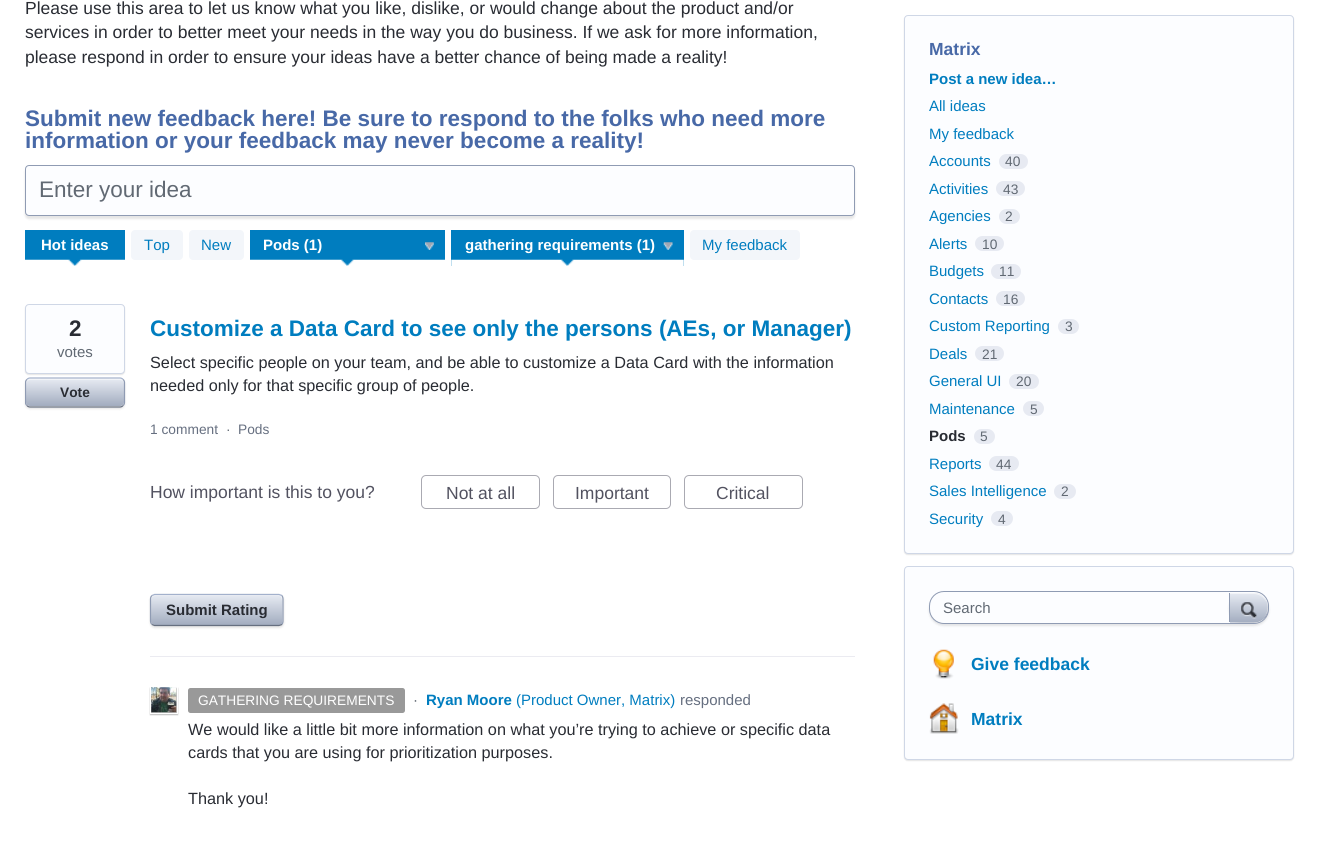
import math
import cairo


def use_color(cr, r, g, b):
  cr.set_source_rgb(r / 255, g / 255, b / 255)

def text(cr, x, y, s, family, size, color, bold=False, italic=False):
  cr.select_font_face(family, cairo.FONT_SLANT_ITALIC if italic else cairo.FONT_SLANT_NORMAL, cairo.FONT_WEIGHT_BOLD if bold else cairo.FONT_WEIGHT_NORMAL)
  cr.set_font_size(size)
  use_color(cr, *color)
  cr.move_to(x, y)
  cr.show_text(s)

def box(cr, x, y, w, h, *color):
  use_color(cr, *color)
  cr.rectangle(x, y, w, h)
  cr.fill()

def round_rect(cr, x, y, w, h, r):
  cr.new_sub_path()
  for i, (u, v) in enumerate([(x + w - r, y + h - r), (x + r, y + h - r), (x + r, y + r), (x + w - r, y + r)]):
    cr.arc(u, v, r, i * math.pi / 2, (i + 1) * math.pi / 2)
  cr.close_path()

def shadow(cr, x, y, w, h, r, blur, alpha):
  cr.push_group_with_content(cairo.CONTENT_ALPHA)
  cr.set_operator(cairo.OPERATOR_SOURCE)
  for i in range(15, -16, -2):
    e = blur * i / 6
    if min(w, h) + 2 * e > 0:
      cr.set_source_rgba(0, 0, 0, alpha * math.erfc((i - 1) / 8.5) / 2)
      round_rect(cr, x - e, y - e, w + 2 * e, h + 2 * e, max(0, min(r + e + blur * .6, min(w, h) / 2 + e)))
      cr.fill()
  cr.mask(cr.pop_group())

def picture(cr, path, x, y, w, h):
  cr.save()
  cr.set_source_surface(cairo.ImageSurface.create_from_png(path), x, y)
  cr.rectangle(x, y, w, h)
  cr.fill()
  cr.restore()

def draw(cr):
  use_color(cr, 255, 255, 255)
  cr.paint()
  use_color(cr, 0, 0, 0)
  shadow(cr, 25, 168, 830, 51, 4, 1, 0.1)
  use_color(cr, 252, 253, 255)
  round_rect(cr, 25.5, 165.5, 829, 50, 3.5)
  cr.fill_preserve()
  use_color(cr, 143, 155, 179)
  cr.set_line_width(1)
  cr.stroke()
  box(cr, 25, 230, 100, 36, 0, 125, 191)
  picture(cr, "img_01.png", 25, 259, 100, 7)
  use_color(cr, 243, 246, 250)
  round_rect(cr, 131, 230, 52, 30, 4)
  cr.fill()
  round_rect(cr, 189, 230, 55, 30, 4)
  cr.fill()
  box(cr, 250, 230, 195, 36, 0, 125, 191)
  picture(cr, "img_02.png", 250, 259, 195, 7)
  picture(cr, "img_03.png", 425, 242, 9, 8)
  box(cr, 451, 230, 233, 36, 0, 125, 191)
  picture(cr, "img_04.png", 451, 259, 233, 7)
  picture(cr, "img_05.png", 663, 242, 10, 8)
  use_color(cr, 243, 246, 250)
  round_rect(cr, 690, 230, 110, 30, 4)
  cr.fill()
  use_color(cr, 0, 0, 0)
  shadow(cr, 25, 305, 100, 70, 4, 0.5, 0.1)
  use_color(cr, 252, 253, 255)
  round_rect(cr, 25.5, 304.5, 99, 69, 3.5)
  cr.fill_preserve()
  use_color(cr, 207, 215, 230)
  cr.stroke()
  use_color(cr, 0, 0, 0)
  shadow(cr, 25, 379, 100, 30, 5, 1, 0.1)
  gradient = cairo.LinearGradient(26, 379, 26, 406)
  gradient.add_color_stop_rgba(0, 0.902, 0.918, 0.949, 1)
  gradient.add_color_stop_rgba(1, 0.635, 0.675, 0.749, 1)
  cr.set_source(gradient)
  round_rect(cr, 26, 379, 98, 27, 4)
  cr.fill()
  cr.set_source_rgba(1, 1, 1, 0.5)
  cr.new_path()
  cr.move_to(30, 380)
  cr.line_to(120, 380)
  cr.curve_to(122, 380, 124, 382, 124, 384)
  cr.curve_to(124, 375, 109, 379, 105, 379)
  cr.line_to(45, 379)
  cr.curve_to(41, 379, 26, 375, 26, 384)
  cr.curve_to(26, 382, 28, 380, 30, 380)
  cr.close_path()
  cr.fill()
  cr.new_path()
  cr.move_to(27, 379.5)
  cr.curve_to(27.5, 378.5, 29, 378, 30, 378)
  cr.line_to(120, 378)
  cr.curve_to(121, 378, 122.5, 378.5, 123, 379.5)
  use_color(cr, 163, 177, 204)
  cr.set_line_width(1.2)
  cr.stroke()
  cr.new_path()
  cr.move_to(123, 379.5)
  cr.curve_to(124, 380, 124.5, 381.5, 124.5, 382.5)
  cr.line_to(124.5, 402.5)
  cr.curve_to(124.5, 403.5, 124, 405, 123, 405.5)
  use_color(cr, 143, 155, 179)
  cr.stroke()
  cr.new_path()
  cr.move_to(123, 405.5)
  cr.curve_to(122.5, 406.5, 121, 407, 120, 407)
  cr.line_to(30, 407)
  cr.curve_to(29, 407, 27.5, 406.5, 27, 405.5)
  use_color(cr, 102, 111, 128)
  cr.stroke()
  cr.save()
  cr.rectangle(25, 0, 1270, 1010)
  cr.clip()
  cr.new_path()
  cr.move_to(27, 405.5)
  cr.curve_to(26, 405, 25.5, 403.5, 25.5, 402.5)
  cr.line_to(25.5, 382.5)
  cr.curve_to(25.5, 381.5, 26, 380, 27, 379.5)
  use_color(cr, 143, 155, 179)
  cr.stroke()
  cr.restore()
  box(cr, 150, 656, 705, 1, 235, 235, 241)
  round_rect(cr, 421.5, 475.5, 118, 33, 4.5)
  use_color(cr, 170, 170, 178)
  cr.set_line_width(1)
  cr.stroke()
  round_rect(cr, 553.5, 475.5, 117, 33, 4.5)
  cr.stroke()
  round_rect(cr, 684.5, 475.5, 118, 33, 4.5)
  cr.stroke()
  use_color(cr, 0, 0, 0)
  shadow(cr, 150, 595, 134, 33, 5, 1, 0.1)
  gradient = cairo.LinearGradient(151, 595, 151, 625)
  gradient.add_color_stop_rgba(0, 0.902, 0.918, 0.949, 1)
  gradient.add_color_stop_rgba(1, 0.635, 0.675, 0.749, 1)
  cr.set_source(gradient)
  round_rect(cr, 151, 595, 132, 30, 4)
  cr.fill()
  cr.set_source_rgba(1, 1, 1, 0.5)
  cr.new_path()
  cr.move_to(155, 596)
  cr.line_to(279, 596)
  cr.curve_to(283, 596, 282, 605, 282, 607)
  cr.line_to(282, 624)
  cr.curve_to(283, 623, 283, 622, 283, 621)
  cr.line_to(283, 599)
  cr.curve_to(283, 597, 281, 595, 279, 595)
  cr.line_to(155, 595)
  cr.curve_to(153, 595, 151, 597, 151, 599)
  cr.line_to(151, 600)
  cr.curve_to(151, 598, 153, 596, 155, 596)
  cr.close_path()
  cr.fill()
  cr.new_path()
  cr.move_to(152, 595.5)
  cr.line_to(154.5, 594.5)
  cr.line_to(258, 594.5)
  cr.line_to(279, 594.5)
  cr.line_to(282, 595.5)
  use_color(cr, 163, 177, 204)
  cr.set_line_width(1.2)
  cr.stroke()
  cr.new_path()
  cr.move_to(282, 595.5)
  cr.curve_to(282.5, 596.5, 283, 597.5, 283, 599)
  cr.line_to(283, 621)
  cr.curve_to(283, 622.5, 282.5, 623.5, 282, 624.5)
  use_color(cr, 143, 155, 179)
  cr.stroke()
  cr.new_path()
  cr.move_to(282, 624.5)
  cr.line_to(279, 625.5)
  cr.line_to(154.5, 625.5)
  cr.line_to(152, 624.5)
  use_color(cr, 102, 111, 128)
  cr.stroke()
  cr.new_path()
  cr.move_to(152, 624.5)
  cr.curve_to(151, 623.5, 150.5, 622.5, 150.5, 621)
  cr.line_to(150.5, 599)
  cr.curve_to(150.5, 597.5, 151, 596.5, 152, 595.5)
  use_color(cr, 143, 155, 179)
  cr.stroke()
  use_color(cr, 153, 153, 153)
  round_rect(cr, 188, 688, 217, 25, 2.5)
  cr.fill()
  use_color(cr, 0, 0, 0)
  shadow(cr, 150, 688, 28, 27, 0, 0.5, 0.25)
  cr.rectangle(150.5, 686.5, 27, 27)
  use_color(cr, 255, 255, 255)
  cr.set_line_width(1)
  cr.stroke()
  picture(cr, "img_06.png", 151, 687, 26, 26)
  use_color(cr, 0, 0, 0)
  shadow(cr, 904, 16, 390, 539, 4, 0.5, 0.1)
  use_color(cr, 252, 253, 255)
  round_rect(cr, 904.5, 15.5, 389, 538, 3.5)
  cr.fill_preserve()
  use_color(cr, 207, 215, 230)
  cr.stroke()
  use_color(cr, 231, 234, 242)
  round_rect(cr, 999, 154, 29, 15, 7.5)
  cr.fill()
  round_rect(cr, 996, 181, 29, 15, 7.5)
  cr.fill()
  round_rect(cr, 999, 209, 21, 15, 7.5)
  cr.fill()
  round_rect(cr, 975, 236, 29, 15, 7.5)
  cr.fill()
  round_rect(cr, 991, 264, 30, 15, 7.5)
  cr.fill()
  round_rect(cr, 996, 291, 29, 15, 7.5)
  cr.fill()
  round_rect(cr, 1058, 319, 21, 15, 7.5)
  cr.fill()
  round_rect(cr, 975, 346, 29, 15, 7.5)
  cr.fill()
  round_rect(cr, 1009, 374, 30, 15, 7.5)
  cr.fill()
  round_rect(cr, 1023, 401, 21, 15, 7.5)
  cr.fill()
  round_rect(cr, 974, 429, 21, 15, 7.5)
  cr.fill()
  round_rect(cr, 989, 456, 30, 15, 7.5)
  cr.fill()
  round_rect(cr, 1054, 484, 22, 15, 7.5)
  cr.fill()
  round_rect(cr, 991, 511, 22, 15, 7.5)
  cr.fill()
  use_color(cr, 0, 0, 0)
  shadow(cr, 904, 568, 390, 193, 4, 0.5, 0.1)
  use_color(cr, 252, 253, 255)
  round_rect(cr, 904.5, 566.5, 389, 193, 3.5)
  cr.fill_preserve()
  use_color(cr, 207, 215, 230)
  cr.stroke()
  use_color(cr, 0, 0, 0)
  shadow(cr, 929, 594, 340, 32, 15, 1, 0.1)
  use_color(cr, 252, 253, 255)
  round_rect(cr, 929.5, 591.5, 339, 32, 14.5)
  cr.fill_preserve()
  use_color(cr, 143, 155, 179)
  cr.stroke()
  cr.save()
  round_rect(cr, 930, 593, 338, 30, 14)
  cr.clip()
  use_color(cr, 0, 0, 0)
  shadow(cr, 1229, 593, 40, 31, 15, 1, 0.1)
  cr.restore()
  gradient = cairo.LinearGradient(1230, 593, 1230, 623)
  gradient.add_color_stop_rgba(0, 0.902, 0.918, 0.949, 1)
  gradient.add_color_stop_rgba(1, 0.635, 0.675, 0.749, 1)
  cr.set_source(gradient)
  cr.new_path()
  cr.move_to(1266, 600)
  cr.curve_to(1267, 601.5, 1267.5, 604, 1267.5, 606)
  cr.line_to(1267.5, 607.5)
  cr.curve_to(1267.5, 616, 1261.5, 622.5, 1254, 622.5)
  cr.line_to(1230, 622.5)
  cr.line_to(1230, 593)
  cr.line_to(1254, 593)
  cr.curve_to(1259, 593, 1263.5, 595.5, 1266, 600)
  cr.close_path()
  cr.fill()
  cr.set_source_rgba(1, 1, 1, 0.5)
  cr.new_path()
  cr.move_to(1230, 594)
  cr.line_to(1230, 593)
  cr.line_to(1255.5, 593)
  cr.curve_to(1261.5, 594, 1266, 598, 1267, 603.5)
  cr.curve_to(1265, 598, 1259.5, 594, 1254, 594)
  cr.close_path()
  cr.fill()
  use_color(cr, 143, 155, 179)
  cr.new_path()
  cr.move_to(1265.5, 617)
  cr.curve_to(1262.5, 620, 1258.5, 622, 1254, 622)
  cr.curve_to(1261, 622, 1268, 616, 1268, 608)
  cr.curve_to(1268, 611.5, 1267.5, 614.5, 1265.5, 617)
  cr.close_path()
  cr.fill()
  box(cr, 1229, 593, 1, 29, 143, 155, 179)
  picture(cr, "img_07.png", 1241, 602, 16, 17)
  picture(cr, "img_08.png", 933, 649, 21, 30)
  picture(cr, "img_09.png", 929, 703, 30, 31)
  text(cr, 25, 14, "Please use this area to let us know what you like, dislike, or would change about the product and/or", "Liberation Sans", 17.5, (41, 44, 51))
  text(cr, 25, 38, "services in order to better meet your needs in the way you do business. If we ask for more information,", "Liberation Sans", 17.5, (41, 44, 51))
  text(cr, 25, 63, "please respond in order to ensure your ideas have a better chance of being made a reality!", "Liberation Sans", 17.5, (41, 44, 51))
  text(cr, 25, 126, "Submit new feedback here! Be sure to respond to the folks who need more", "Liberation Sans", 22.5, (72, 105, 167), bold=True)
  text(cr, 25, 148, "information or your feedback may never become a reality!", "Liberation Sans", 22.5, (72, 105, 167), bold=True)
  text(cr, 39, 197, "Enter your idea", "Liberation Sans", 22.5, (97, 105, 115))
  text(cr, 41, 250, "Hot ideas", "Liberation Sans", 15, (255, 255, 255), bold=True)
  text(cr, 144, 250, "Top", "Liberation Sans", 15, (0, 125, 191))
  text(cr, 201, 250, "New", "Liberation Sans", 15, (0, 125, 191))
  text(cr, 263, 250, "Pods (1)", "Liberation Sans", 15, (255, 255, 255), bold=True)
  text(cr, 465, 250, "gathering requirements (1)", "Liberation Sans", 15, (255, 255, 255), bold=True)
  text(cr, 702, 250, "My feedback", "Liberation Sans", 15, (0, 125, 191))
  text(cr, 69, 336, "2", "Liberation Sans", 22.5, (41, 44, 51), bold=True)
  text(cr, 57, 357, "votes", "Liberation Sans", 15, (97, 105, 115))
  text(cr, 60, 397, "Vote", "Liberation Sans", 13.75, (41, 44, 51), bold=True)
  text(cr, 150, 336, "Customize a Data Card to see only the persons (AEs, or Manager)", "Liberation Sans", 22.5, (0, 125, 191), bold=True)
  text(cr, 150, 368, "Select specific people on your team, and be able to customize a Data Card with the information", "Liberation Sans", 16.25, (41, 44, 51))
  text(cr, 150, 391, "needed only for that specific group of people.", "Liberation Sans", 16.25, (41, 44, 51))
  text(cr, 150, 434, "1 comment", "Liberation Sans", 13.75, (102, 111, 128))
  text(cr, 226, 434, "·", "Liberation Sans", 13.75, (97, 105, 115))
  text(cr, 238, 434, "Pods", "Liberation Sans", 13.75, (102, 111, 128))
  text(cr, 150, 498, "How important is this to you?", "Liberation Sans", 17.5, (82, 82, 96))
  text(cr, 446, 499, "Not at all", "Liberation Sans", 17.5, (82, 82, 96))
  text(cr, 575, 499, "Important", "Liberation Sans", 17.5, (82, 82, 96))
  text(cr, 716, 499, "Critical", "Liberation Sans", 17.5, (82, 82, 96))
  text(cr, 166, 615, "Submit Rating", "Liberation Sans", 15, (41, 44, 51), bold=True)
  text(cr, 198, 705, "GATHERING REQUIREMENTS", "Liberation Sans", 13.75, (255, 255, 255))
  text(cr, 413, 705, "·", "Liberation Sans", 15, (97, 105, 115))
  text(cr, 426, 705, "Ryan Moore", "Liberation Sans", 15, (0, 125, 191), bold=True)
  text(cr, 516, 705, "(Product Owner, Matrix)", "Liberation Sans", 15, (0, 125, 191))
  text(cr, 680, 705, "responded", "Liberation Sans", 15, (102, 111, 128))
  text(cr, 188, 735, "We would like a little bit more information on what you’re trying to achieve or specific data", "Liberation Sans", 16.25, (41, 44, 51))
  text(cr, 188, 758, "cards that you are using for prioritization purposes.", "Liberation Sans", 16.25, (41, 44, 51))
  text(cr, 188, 804, "Thank you!", "Liberation Sans", 16.25, (41, 44, 51))
  text(cr, 929, 55, "Matrix", "Liberation Sans", 17.5, (72, 105, 167), bold=True)
  text(cr, 929, 84, "Post a new idea…", "Liberation Sans", 15, (0, 125, 191), bold=True)
  text(cr, 929, 111, "All ideas", "Liberation Sans", 15, (0, 125, 191))
  text(cr, 929, 139, "My feedback", "Liberation Sans", 15, (0, 125, 191))
  text(cr, 929, 166, "Accounts", "Liberation Sans", 15, (0, 125, 191))
  text(cr, 1005, 166, "40", "Liberation Sans", 13.75, (97, 105, 115))
  text(cr, 929, 194, "Activities", "Liberation Sans", 15, (0, 125, 191))
  text(cr, 1003, 194, "43", "Liberation Sans", 13.75, (97, 105, 115))
  text(cr, 929, 221, "Agencies", "Liberation Sans", 15, (0, 125, 191))
  text(cr, 1005, 221, "2", "Liberation Sans", 13.75, (97, 105, 115))
  text(cr, 929, 249, "Alerts", "Liberation Sans", 15, (0, 125, 191))
  text(cr, 982, 249, "10", "Liberation Sans", 13.75, (97, 105, 115))
  text(cr, 929, 276, "Budgets", "Liberation Sans", 15, (0, 125, 191))
  text(cr, 999, 276, "11", "Liberation Sans", 13.75, (97, 105, 115))
  text(cr, 929, 304, "Contacts", "Liberation Sans", 15, (0, 125, 191))
  text(cr, 1003, 304, "16", "Liberation Sans", 13.75, (97, 105, 115))
  text(cr, 929, 331, "Custom Reporting", "Liberation Sans", 15, (0, 125, 191))
  text(cr, 1065, 331, "3", "Liberation Sans", 13.75, (97, 105, 115))
  text(cr, 929, 359, "Deals", "Liberation Sans", 15, (0, 125, 191))
  text(cr, 982, 359, "21", "Liberation Sans", 13.75, (97, 105, 115))
  text(cr, 929, 386, "General UI", "Liberation Sans", 15, (0, 125, 191))
  text(cr, 1016, 386, "20", "Liberation Sans", 13.75, (97, 105, 115))
  text(cr, 929, 414, "Maintenance", "Liberation Sans", 15, (0, 125, 191))
  text(cr, 1030, 414, "5", "Liberation Sans", 13.75, (97, 105, 115))
  text(cr, 929, 441, "Pods", "Liberation Sans", 15, (41, 44, 51), bold=True)
  text(cr, 980, 441, "5", "Liberation Sans", 13.75, (97, 105, 115))
  text(cr, 929, 469, "Reports", "Liberation Sans", 15, (0, 125, 191))
  text(cr, 996, 469, "44", "Liberation Sans", 13.75, (97, 105, 115))
  text(cr, 929, 496, "Sales Intelligence", "Liberation Sans", 15, (0, 125, 191))
  text(cr, 1061, 496, "2", "Liberation Sans", 13.75, (97, 105, 115))
  text(cr, 929, 524, "Security", "Liberation Sans", 15, (0, 125, 191))
  text(cr, 998, 524, "4", "Liberation Sans", 13.75, (97, 105, 115))
  text(cr, 943, 613, "Search", "Liberation Sans", 15, (97, 105, 115))
  text(cr, 971, 670, "Give feedback", "Liberation Sans", 17.5, (0, 125, 191), bold=True)
  text(cr, 971, 725, "Matrix", "Liberation Sans", 17.5, (0, 125, 191), bold=True)


surface = cairo.ImageSurface(cairo.FORMAT_RGB24, 1319, 844)
cr = cairo.Context(surface)
options = cairo.FontOptions()
options.set_hint_metrics(cairo.HINT_METRICS_OFF)
options.set_hint_style(cairo.HINT_STYLE_NONE)
cr.set_font_options(options)
cr.set_miter_limit(4)
draw(cr)
surface.write_to_png("out.png")
